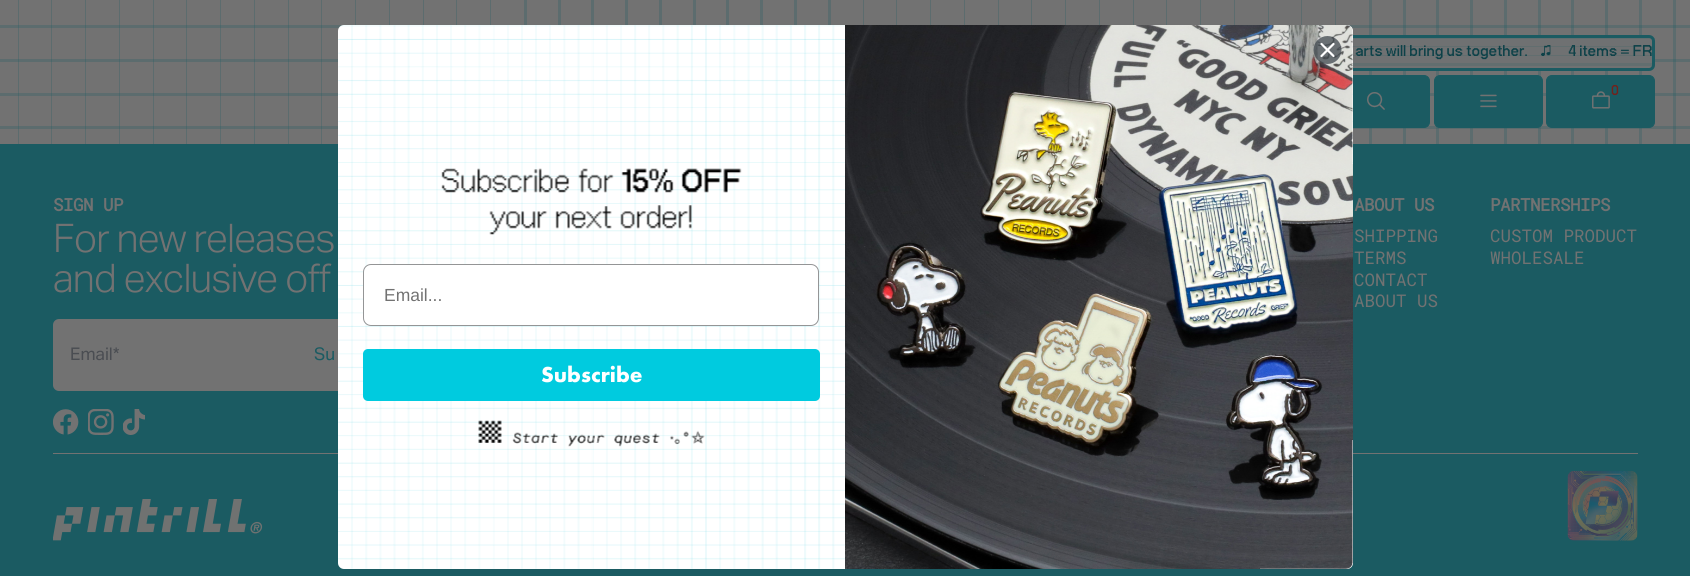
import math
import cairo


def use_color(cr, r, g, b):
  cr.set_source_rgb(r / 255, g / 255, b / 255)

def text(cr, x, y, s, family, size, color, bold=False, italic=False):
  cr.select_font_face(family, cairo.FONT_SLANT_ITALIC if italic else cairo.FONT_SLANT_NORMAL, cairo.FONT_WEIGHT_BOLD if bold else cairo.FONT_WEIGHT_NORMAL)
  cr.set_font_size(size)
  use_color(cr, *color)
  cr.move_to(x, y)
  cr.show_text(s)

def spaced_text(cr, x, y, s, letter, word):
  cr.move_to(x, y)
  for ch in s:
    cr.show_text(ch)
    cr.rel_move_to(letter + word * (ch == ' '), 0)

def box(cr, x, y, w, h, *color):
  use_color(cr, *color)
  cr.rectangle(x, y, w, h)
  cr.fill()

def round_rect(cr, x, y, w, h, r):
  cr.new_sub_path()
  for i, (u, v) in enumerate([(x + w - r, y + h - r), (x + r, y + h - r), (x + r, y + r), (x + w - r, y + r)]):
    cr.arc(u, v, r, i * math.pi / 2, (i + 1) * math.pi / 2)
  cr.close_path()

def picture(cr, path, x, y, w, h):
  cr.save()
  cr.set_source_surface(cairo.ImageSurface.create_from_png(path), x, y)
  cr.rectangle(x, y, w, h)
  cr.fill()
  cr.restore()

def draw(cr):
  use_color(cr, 114, 114, 114)
  cr.paint()
  picture(cr, "img_01.png", 18, 0, 1658, 144)
  picture(cr, "img_02.png", 0, 25, 1690, 104)
  use_color(cr, 111, 113, 114)
  round_rect(cr, 984, 35, 671, 36, 6)
  cr.fill()
  box(cr, 1353, 38, 302, 1, 98, 110, 111)
  box(cr, 1353, 46, 302, 1, 98, 110, 111)
  box(cr, 1353, 55, 302, 1, 98, 110, 111)
  box(cr, 1353, 63, 302, 3, 98, 110, 111)
  round_rect(cr, 985.5, 36.5, 668, 33, 4.5)
  use_color(cr, 27, 91, 98)
  cr.set_line_width(3)
  cr.stroke()
  round_rect(cr, 1321.5, 75.5, 108, 52, 5.5)
  cr.fill_preserve()
  cr.set_line_width(1)
  cr.stroke()
  picture(cr, "img_03.png", 1367, 92, 18, 18)
  round_rect(cr, 1434.5, 75.5, 108, 52, 5.5)
  cr.fill_preserve()
  cr.stroke()
  picture(cr, "img_04.png", 1480, 94, 17, 14)
  round_rect(cr, 1546.5, 75.5, 108, 52, 5.5)
  cr.fill_preserve()
  cr.stroke()
  picture(cr, "img_05.png", 1592, 91, 18, 18)
  box(cr, 0, 144, 1690, 432, 27, 91, 98)
  use_color(cr, 114, 114, 114)
  round_rect(cr, 53, 319, 336, 72, 6)
  cr.fill()
  picture(cr, "img_06.png", 53, 409, 26, 26)
  picture(cr, "img_07.png", 88, 409, 26, 26)
  picture(cr, "img_08.png", 123, 409, 22, 26)
  box(cr, 53, 453, 1585, 1, 114, 114, 114)
  picture(cr, "img_09.png", 53, 499, 210, 42)
  picture(cr, "img_10.png", 1567, 470, 71, 71)
  use_color(cr, 255, 255, 255)
  round_rect(cr, 338, 25, 1015, 544, 6)
  cr.fill()
  picture(cr, "img_11.png", 338, 25, 1015, 544)
  picture(cr, "img_14.png", 845, 25, 508, 544)
  cr.set_source_rgba(0.216, 0.247, 0.278, 0.7)
  cr.arc(1327.5, 50, 14, 0, 2 * math.pi)
  cr.fill()
  cr.new_path()
  cr.move_to(1321.5, 44)
  cr.line_to(1333.5, 56)
  cr.move_to(1321.5, 56)
  cr.line_to(1333.5, 44)
  cr.close_path()
  use_color(cr, 255, 255, 255)
  cr.set_line_width(2.2)
  cr.set_line_cap(cairo.LINE_CAP_ROUND)
  cr.set_line_join(cairo.LINE_JOIN_ROUND)
  cr.stroke()
  picture(cr, "img_12.png", 441, 168, 301, 67)
  round_rect(cr, 363.5, 264.5, 455, 61, 7.5)
  cr.fill_preserve()
  use_color(cr, 148, 149, 150)
  cr.set_line_width(1)
  cr.set_line_cap(cairo.LINE_CAP_BUTT)
  cr.set_line_join(cairo.LINE_JOIN_MITER)
  cr.stroke()
  use_color(cr, 0, 203, 223)
  round_rect(cr, 363, 349, 457, 52, 5)
  cr.fill()
  picture(cr, "img_13.png", 478, 420, 227, 27)
  text(cr, 1355, 56, "arts will bring us together.    ♫", "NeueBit", 21.9, (13, 65, 72), bold=True)
  text(cr, 1568, 56, "4 items = FR", "NeueBit", 21.9, (13, 65, 72), bold=True)
  text(cr, 1611, 95, "0", "NeueBit", 20, (114, 34, 28), bold=True)
  cr.select_font_face("Roboto Mono", cairo.FONT_SLANT_NORMAL, cairo.FONT_WEIGHT_BOLD)
  cr.set_font_size(17.5)
  use_color(cr, 114, 114, 114)
  spaced_text(cr, 53, 211, "SIGN UP", -0.5, 0)
  cr.select_font_face("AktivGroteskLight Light")
  cr.set_font_size(39.5)
  spaced_text(cr, 53, 252, "For new releases", -1, 0)
  spaced_text(cr, 53, 292, "and exclusive off", -1, 0)
  text(cr, 70, 360, "Email*", "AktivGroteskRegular", 17.5, (74, 77, 82))
  text(cr, 314, 360, "Su", "AktivGroteskRegular", 17.5, (27, 91, 98))
  cr.select_font_face("Roboto Mono", cairo.FONT_SLANT_NORMAL, cairo.FONT_WEIGHT_BOLD)
  use_color(cr, 114, 114, 114)
  spaced_text(cr, 1354, 211, "ABOUT US", -0.5, 0)
  text(cr, 1354, 242, "SHIPPING", "Roboto Mono", 17.5, (114, 114, 114))
  text(cr, 1354, 264, "TERMS", "Roboto Mono", 17.5, (114, 114, 114))
  text(cr, 1354, 286, "CONTACT", "Roboto Mono", 17.5, (114, 114, 114))
  text(cr, 1354, 307, "ABOUT US", "Roboto Mono", 17.5, (114, 114, 114))
  cr.select_font_face("Roboto Mono", cairo.FONT_SLANT_NORMAL, cairo.FONT_WEIGHT_BOLD)
  spaced_text(cr, 1490, 211, "PARTNERSHIPS", -0.5, 0)
  text(cr, 1490, 242, "CUSTOM PRODUCT", "Roboto Mono", 17.5, (114, 114, 114))
  text(cr, 1490, 264, "WHOLESALE", "Roboto Mono", 17.5, (114, 114, 114))
  text(cr, 384, 301, "Email...", "Liberation Sans", 17.5, (114, 114, 114))
  text(cr, 541, 382, "Subscribe", "Futura PT", 22.5, (255, 255, 255), bold=True)


surface = cairo.ImageSurface(cairo.FORMAT_RGB24, 1690, 576)
cr = cairo.Context(surface)
options = cairo.FontOptions()
options.set_hint_metrics(cairo.HINT_METRICS_OFF)
options.set_hint_style(cairo.HINT_STYLE_NONE)
cr.set_font_options(options)
cr.set_miter_limit(4)
draw(cr)
surface.write_to_png("out.png")
